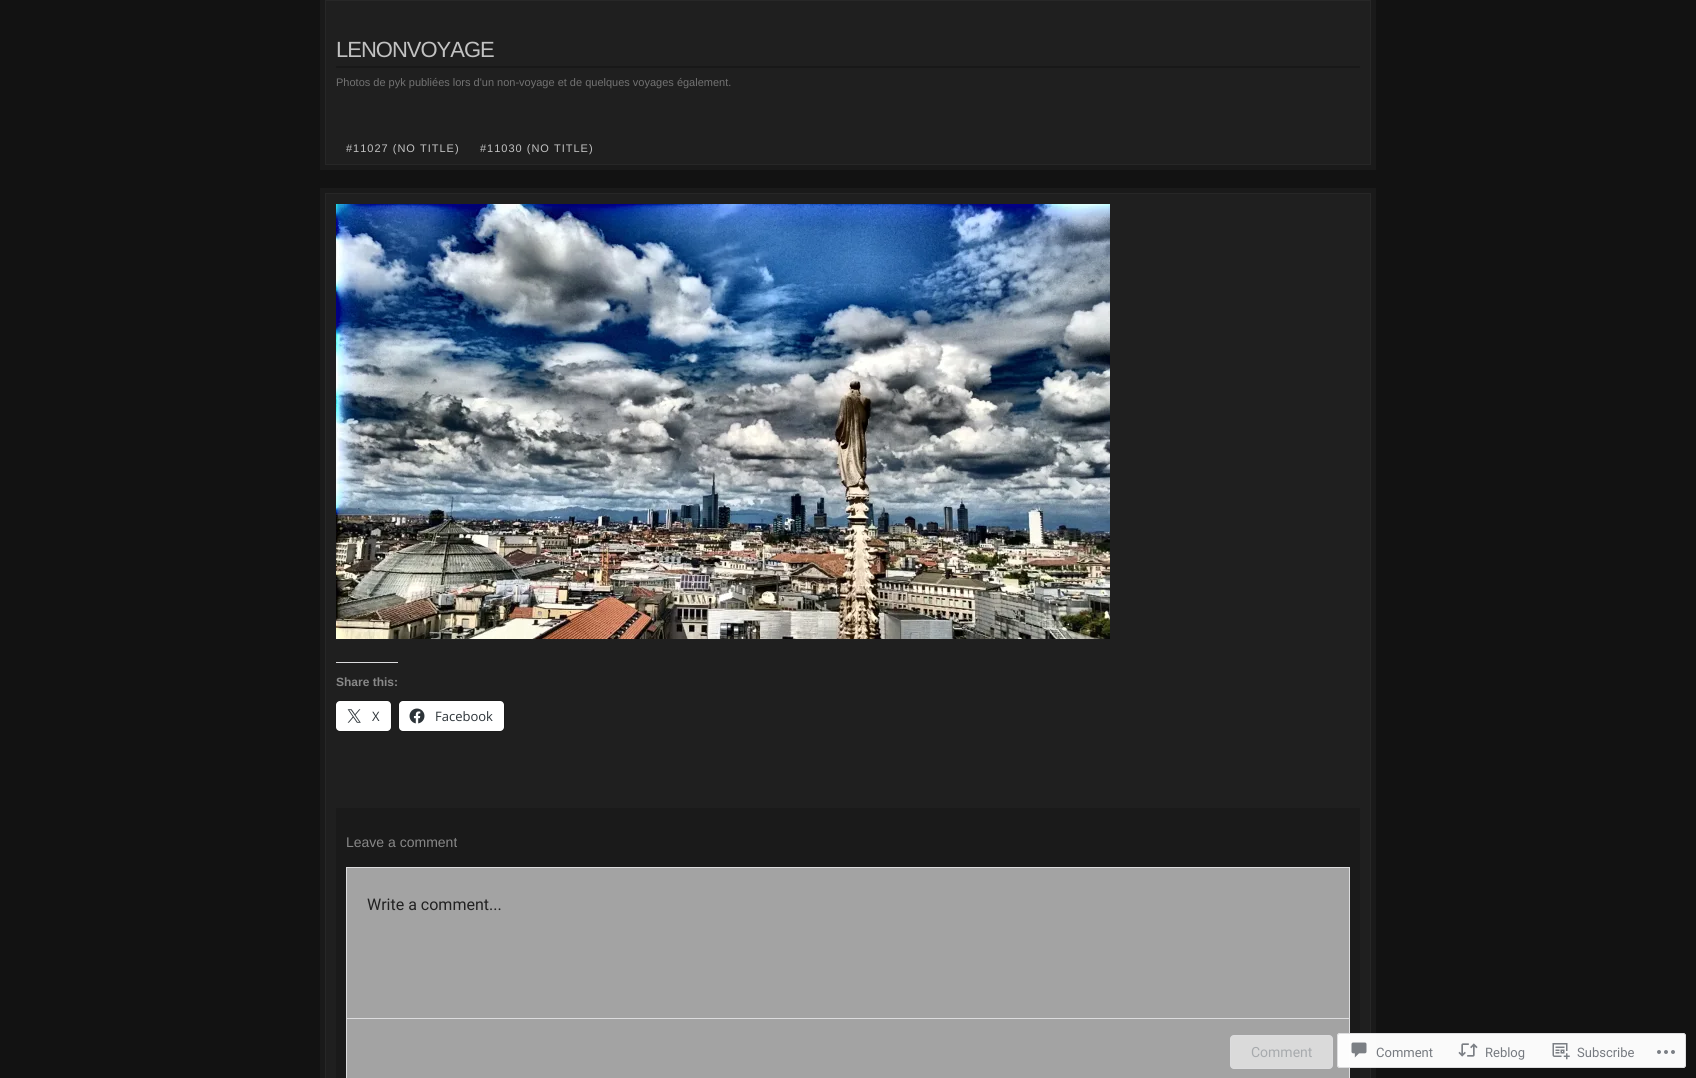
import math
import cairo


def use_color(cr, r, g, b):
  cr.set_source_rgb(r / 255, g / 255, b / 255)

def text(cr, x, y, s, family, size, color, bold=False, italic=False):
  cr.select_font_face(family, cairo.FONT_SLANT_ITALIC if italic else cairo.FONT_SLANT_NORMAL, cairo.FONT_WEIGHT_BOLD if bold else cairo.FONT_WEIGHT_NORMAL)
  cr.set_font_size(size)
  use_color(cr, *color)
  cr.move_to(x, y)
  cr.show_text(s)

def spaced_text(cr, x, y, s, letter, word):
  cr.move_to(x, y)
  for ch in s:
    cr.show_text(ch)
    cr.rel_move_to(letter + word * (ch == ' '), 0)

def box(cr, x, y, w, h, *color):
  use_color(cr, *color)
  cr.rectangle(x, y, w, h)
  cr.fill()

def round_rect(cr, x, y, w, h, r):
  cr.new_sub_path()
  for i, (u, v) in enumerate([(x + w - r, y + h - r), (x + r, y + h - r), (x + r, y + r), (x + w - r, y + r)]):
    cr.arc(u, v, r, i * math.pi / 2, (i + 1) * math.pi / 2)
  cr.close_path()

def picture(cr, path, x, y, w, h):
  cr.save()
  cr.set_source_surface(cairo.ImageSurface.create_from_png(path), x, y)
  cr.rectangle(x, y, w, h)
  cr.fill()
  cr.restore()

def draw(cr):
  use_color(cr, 18, 18, 18)
  cr.paint()
  box(cr, 320, 0, 1056, 170, 26, 26, 26)
  use_color(cr, 31, 31, 31)
  cr.rectangle(325.5, 0.5, 1045, 164)
  cr.fill_preserve()
  use_color(cr, 39, 39, 39)
  cr.set_line_width(1)
  cr.stroke()
  box(cr, 336, 66, 1024, 2, 24, 24, 24)
  box(cr, 320, 188, 1056, 890, 26, 26, 26)
  use_color(cr, 31, 31, 31)
  cr.rectangle(325.5, 193.5, 1045, 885)
  cr.fill_preserve()
  use_color(cr, 39, 39, 39)
  cr.stroke()
  picture(cr, "img_01.png", 336, 204, 774, 435)
  box(cr, 336, 662, 62, 1, 220, 220, 222)
  round_rect(cr, 335.5, 700.5, 56, 31, 4.5)
  use_color(cr, 27, 27, 27)
  cr.stroke()
  use_color(cr, 255, 255, 255)
  round_rect(cr, 336, 701, 55, 30, 4)
  cr.fill()
  picture(cr, "img_02.png", 347, 709, 14, 14)
  round_rect(cr, 398.5, 700.5, 106, 31, 4.5)
  use_color(cr, 27, 27, 27)
  cr.stroke()
  use_color(cr, 255, 255, 255)
  round_rect(cr, 399, 701, 105, 30, 4)
  cr.fill()
  picture(cr, "img_03.png", 409, 708, 16, 16)
  box(cr, 336, 808, 1024, 270, 26, 26, 26)
  use_color(cr, 163, 163, 163)
  cr.rectangle(346.5, 867.5, 1003, 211)
  cr.fill_preserve()
  use_color(cr, 220, 220, 222)
  cr.stroke()
  box(cr, 347, 1018, 1002, 1, 220, 220, 222)
  use_color(cr, 218, 218, 218)
  round_rect(cr, 1230.5, 1035.5, 102, 33, 3.5)
  cr.fill_preserve()
  use_color(cr, 220, 220, 222)
  cr.stroke()
  cr.set_source_rgba(1, 1, 1, 0.98)
  round_rect(cr, 1337, 1033, 349, 35, 3)
  cr.fill()
  round_rect(cr, 1337.5, 1033.5, 348, 34, 2.5)
  cr.set_source_rgba(0.863, 0.863, 0.871, 0.98)
  cr.stroke()
  picture(cr, "img_04.png", 1351, 1042, 16, 16)
  picture(cr, "img_05.png", 1458, 1043, 20, 14)
  picture(cr, "img_06.png", 1552, 1043, 18, 17)
  picture(cr, "img_07.png", 1657, 1050, 18, 4)
  cr.select_font_face("Liberation Sans")
  cr.set_font_size(22)
  use_color(cr, 194, 194, 194)
  spaced_text(cr, 336, 57, "LENONVOYAGE", -1, 0)
  text(cr, 336, 86, "Photos de pyk publiées lors d'un non-voyage et de quelques voyages également.", "Liberation Sans", 11, (114, 114, 114))
  use_color(cr, 194, 194, 194)
  spaced_text(cr, 346, 152, "#11027 (NO TITLE)", 1, 0)
  spaced_text(cr, 480, 152, "#11030 (NO TITLE)", 1, 0)
  text(cr, 336, 686, "Share this:", "Liberation Sans", 12, (136, 136, 136), bold=True)
  text(cr, 372, 721, "X", "Open Sans", 13, (44, 51, 56))
  text(cr, 435, 721, "Facebook", "Open Sans", 13, (44, 51, 56))
  text(cr, 346, 847, "Leave a comment", "Liberation Sans", 14, (136, 136, 136))
  text(cr, 367, 910, "Write a comment...", "Roboto", 16, (33, 33, 33))
  text(cr, 1251, 1057, "Comment", "Roboto", 14, (167, 170, 173))
  text(cr, 1376, 1057, "Comment", "Roboto", 13, (118, 122, 128))
  text(cr, 1485, 1057, "Reblog", "Roboto", 13, (118, 122, 128))
  text(cr, 1577, 1057, "Subscribe", "Roboto", 13, (118, 122, 128))


surface = cairo.ImageSurface(cairo.FORMAT_RGB24, 1696, 1078)
cr = cairo.Context(surface)
options = cairo.FontOptions()
options.set_hint_metrics(cairo.HINT_METRICS_OFF)
options.set_hint_style(cairo.HINT_STYLE_NONE)
cr.set_font_options(options)
cr.set_miter_limit(4)
draw(cr)
surface.write_to_png("out.png")
